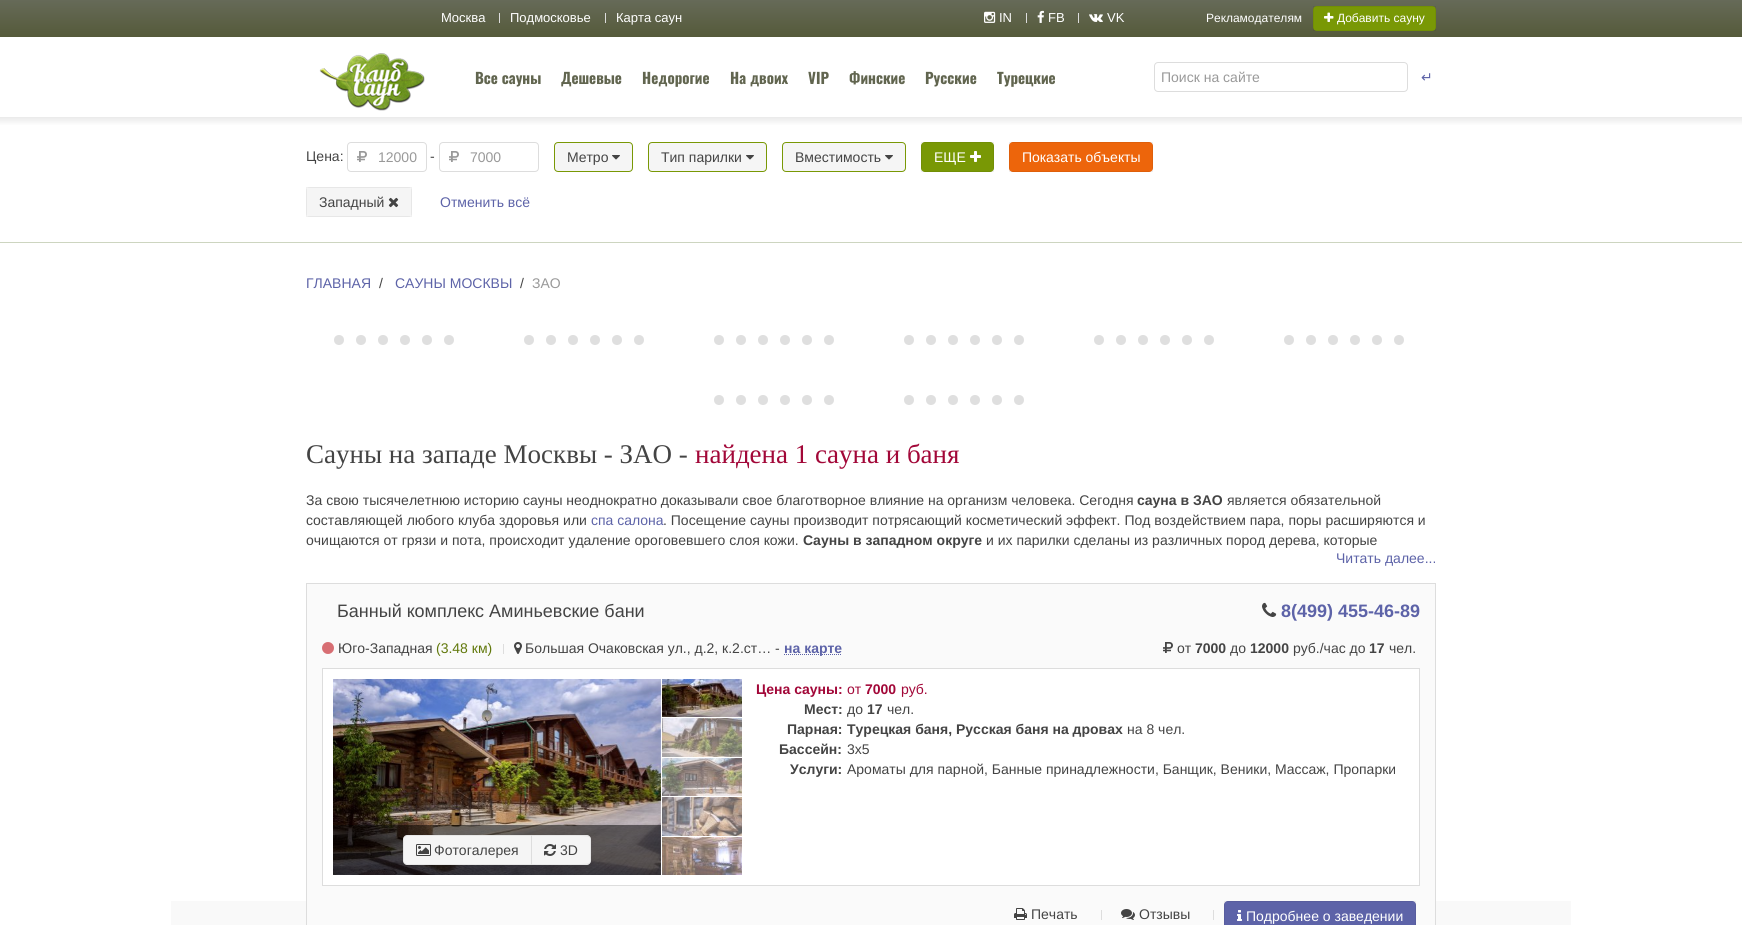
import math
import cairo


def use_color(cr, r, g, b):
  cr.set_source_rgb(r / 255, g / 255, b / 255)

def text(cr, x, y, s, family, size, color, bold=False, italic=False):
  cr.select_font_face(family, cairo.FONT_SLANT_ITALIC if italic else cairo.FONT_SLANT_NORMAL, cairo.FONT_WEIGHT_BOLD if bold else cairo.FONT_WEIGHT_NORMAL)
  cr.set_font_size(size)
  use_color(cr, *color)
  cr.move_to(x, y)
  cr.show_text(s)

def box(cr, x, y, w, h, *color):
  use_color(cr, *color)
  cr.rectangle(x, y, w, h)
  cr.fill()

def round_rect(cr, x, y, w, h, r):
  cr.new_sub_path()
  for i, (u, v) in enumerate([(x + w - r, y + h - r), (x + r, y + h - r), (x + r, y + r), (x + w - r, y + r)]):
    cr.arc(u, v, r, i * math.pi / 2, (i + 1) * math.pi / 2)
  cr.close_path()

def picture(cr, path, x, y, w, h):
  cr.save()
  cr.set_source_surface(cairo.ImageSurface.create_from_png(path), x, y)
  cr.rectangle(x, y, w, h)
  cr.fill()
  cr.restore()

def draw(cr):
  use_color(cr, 255, 255, 255)
  cr.paint()
  picture(cr, "img_01.png", 171, 901, 1400, 24)
  gradient = cairo.LinearGradient(871, 0, 871, 37)
  gradient.add_color_stop_rgba(0, 0.4, 0.416, 0.345, 1)
  gradient.add_color_stop_rgba(1, 0.333, 0.353, 0.227, 1)
  cr.set_source(gradient)
  cr.rectangle(0, 0, 1742, 37)
  cr.fill()
  box(cr, 499, 13, 1, 10, 221, 221, 221)
  box(cr, 605, 13, 1, 10, 221, 221, 221)
  picture(cr, "img_02.png", 984, 11, 12, 12)
  box(cr, 1026, 13, 1, 10, 221, 221, 221)
  picture(cr, "img_03.png", 1037, 10, 7, 13)
  box(cr, 1078, 13, 1, 10, 221, 221, 221)
  picture(cr, "img_04.png", 1089, 14, 14, 8)
  use_color(cr, 121, 152, 5)
  round_rect(cr, 1313, 6, 123, 25, 4)
  cr.fill()
  cr.rectangle(1313.5, 6.5, 122, 24)
  cr.set_source_rgba(0, 0, 0, 0.06)
  cr.set_line_width(1)
  cr.stroke()
  picture(cr, "img_05.png", 1324, 12, 10, 10)
  picture(cr, "img_06.png", 319, 53, 106, 58)
  round_rect(cr, 1154.5, 62.5, 253, 29, 3.5)
  use_color(cr, 221, 221, 221)
  cr.stroke()
  gradient = cairo.LinearGradient(871, 117, 871, 242)
  gradient.add_color_stop_rgba(0, 0.918, 0.918, 0.918, 1)
  gradient.add_color_stop_rgba(0.07, 1, 1, 1, 1)
  cr.set_source(gradient)
  cr.rectangle(0, 117, 1742, 8)
  cr.fill()
  box(cr, 0, 242, 1742, 1, 205, 213, 192)
  round_rect(cr, 347.5, 142.5, 79, 29, 3.5)
  use_color(cr, 221, 221, 221)
  cr.stroke()
  picture(cr, "img_07.png", 357, 151, 10, 11)
  round_rect(cr, 439.5, 142.5, 99, 29, 3.5)
  cr.stroke()
  picture(cr, "img_07.png", 449, 151, 10, 11)
  use_color(cr, 245, 245, 245)
  round_rect(cr, 554.5, 142.5, 78, 29, 3.5)
  cr.fill_preserve()
  use_color(cr, 121, 152, 5)
  cr.stroke()
  picture(cr, "img_08.png", 612, 155, 8, 5)
  use_color(cr, 245, 245, 245)
  round_rect(cr, 648.5, 142.5, 118, 29, 3.5)
  cr.fill_preserve()
  use_color(cr, 121, 152, 5)
  cr.stroke()
  picture(cr, "img_08.png", 746, 155, 8, 5)
  use_color(cr, 245, 245, 245)
  round_rect(cr, 782.5, 142.5, 123, 29, 3.5)
  cr.fill_preserve()
  use_color(cr, 121, 152, 5)
  cr.stroke()
  picture(cr, "img_08.png", 885, 155, 8, 5)
  round_rect(cr, 921, 142, 73, 30, 4)
  cr.fill()
  cr.rectangle(921.5, 142.5, 72, 29)
  cr.set_source_rgba(0, 0, 0, 0.06)
  cr.stroke()
  picture(cr, "img_09.png", 970, 151, 11, 11)
  use_color(cr, 237, 101, 11)
  round_rect(cr, 1009, 142, 144, 30, 4)
  cr.fill()
  cr.rectangle(1009.5, 142.5, 143, 29)
  cr.set_source_rgba(0, 0, 0, 0.06)
  cr.stroke()
  use_color(cr, 245, 245, 245)
  round_rect(cr, 306, 187, 106, 30, 4)
  cr.fill()
  cr.rectangle(306.5, 187.5, 105, 29)
  cr.set_source_rgba(0, 0, 0, 0.06)
  cr.stroke()
  picture(cr, "img_10.png", 388, 197, 11, 11)
  use_color(cr, 223, 223, 223)
  cr.arc(339, 340, 5, 0, 2 * math.pi)
  cr.fill()
  cr.arc(361, 340, 5, 0, 2 * math.pi)
  cr.fill()
  cr.arc(383, 340, 5, 0, 2 * math.pi)
  cr.fill()
  cr.arc(405, 340, 5, 0, 2 * math.pi)
  cr.fill()
  cr.arc(427, 340, 5, 0, 2 * math.pi)
  cr.fill()
  cr.arc(449, 340, 5, 0, 2 * math.pi)
  cr.fill()
  cr.arc(529, 340, 5, 0, 2 * math.pi)
  cr.fill()
  cr.arc(551, 340, 5, 0, 2 * math.pi)
  cr.fill()
  cr.arc(573, 340, 5, 0, 2 * math.pi)
  cr.fill()
  cr.arc(595, 340, 5, 0, 2 * math.pi)
  cr.fill()
  cr.arc(617, 340, 5, 0, 2 * math.pi)
  cr.fill()
  cr.arc(639, 340, 5, 0, 2 * math.pi)
  cr.fill()
  cr.arc(719, 340, 5, 0, 2 * math.pi)
  cr.fill()
  cr.arc(741, 340, 5, 0, 2 * math.pi)
  cr.fill()
  cr.arc(763, 340, 5, 0, 2 * math.pi)
  cr.fill()
  cr.arc(785, 340, 5, 0, 2 * math.pi)
  cr.fill()
  cr.arc(807, 340, 5, 0, 2 * math.pi)
  cr.fill()
  cr.arc(829, 340, 5, 0, 2 * math.pi)
  cr.fill()
  cr.arc(909, 340, 5, 0, 2 * math.pi)
  cr.fill()
  cr.arc(931, 340, 5, 0, 2 * math.pi)
  cr.fill()
  cr.arc(953, 340, 5, 0, 2 * math.pi)
  cr.fill()
  cr.arc(975, 340, 5, 0, 2 * math.pi)
  cr.fill()
  cr.arc(997, 340, 5, 0, 2 * math.pi)
  cr.fill()
  cr.arc(1019, 340, 5, 0, 2 * math.pi)
  cr.fill()
  cr.arc(1099, 340, 5, 0, 2 * math.pi)
  cr.fill()
  cr.arc(1121, 340, 5, 0, 2 * math.pi)
  cr.fill()
  cr.arc(1143, 340, 5, 0, 2 * math.pi)
  cr.fill()
  cr.arc(1165, 340, 5, 0, 2 * math.pi)
  cr.fill()
  cr.arc(1187, 340, 5, 0, 2 * math.pi)
  cr.fill()
  cr.arc(1209, 340, 5, 0, 2 * math.pi)
  cr.fill()
  cr.arc(1289, 340, 5, 0, 2 * math.pi)
  cr.fill()
  cr.arc(1311, 340, 5, 0, 2 * math.pi)
  cr.fill()
  cr.arc(1333, 340, 5, 0, 2 * math.pi)
  cr.fill()
  cr.arc(1355, 340, 5, 0, 2 * math.pi)
  cr.fill()
  cr.arc(1377, 340, 5, 0, 2 * math.pi)
  cr.fill()
  cr.arc(1399, 340, 5, 0, 2 * math.pi)
  cr.fill()
  cr.arc(719, 400, 5, 0, 2 * math.pi)
  cr.fill()
  cr.arc(741, 400, 5, 0, 2 * math.pi)
  cr.fill()
  cr.arc(763, 400, 5, 0, 2 * math.pi)
  cr.fill()
  cr.arc(785, 400, 5, 0, 2 * math.pi)
  cr.fill()
  cr.arc(807, 400, 5, 0, 2 * math.pi)
  cr.fill()
  cr.arc(829, 400, 5, 0, 2 * math.pi)
  cr.fill()
  cr.arc(909, 400, 5, 0, 2 * math.pi)
  cr.fill()
  cr.arc(931, 400, 5, 0, 2 * math.pi)
  cr.fill()
  cr.arc(953, 400, 5, 0, 2 * math.pi)
  cr.fill()
  cr.arc(975, 400, 5, 0, 2 * math.pi)
  cr.fill()
  cr.arc(997, 400, 5, 0, 2 * math.pi)
  cr.fill()
  cr.arc(1019, 400, 5, 0, 2 * math.pi)
  cr.fill()
  use_color(cr, 250, 250, 250)
  cr.rectangle(306.5, 583.5, 1129, 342)
  cr.fill_preserve()
  use_color(cr, 221, 221, 221)
  cr.stroke()
  picture(cr, "img_11.png", 1262, 602, 15, 15)
  picture(cr, "img_12.png", 322, 642, 12, 12)
  box(cr, 503, 644, 1, 10, 221, 221, 221)
  picture(cr, "img_13.png", 514, 642, 8, 12)
  cr.new_path()
  cr.move_to(784, 654.5)
  cr.line_to(842, 654.5)
  use_color(cr, 93, 99, 168)
  cr.set_dash([1, 1])
  cr.stroke()
  picture(cr, "img_14.png", 1163, 642, 10, 11)
  box(cr, 322, 668, 1098, 1, 221, 221, 221)
  box(cr, 323, 669, 1096, 216, 255, 255, 255)
  box(cr, 1419, 669, 1, 217, 221, 221, 221)
  box(cr, 322, 885, 1098, 1, 221, 221, 221)
  box(cr, 322, 669, 1, 217, 221, 221, 221)
  picture(cr, "img_15.png", 333, 679, 328, 196)
  cr.set_source_rgba(0, 0, 0, 0.5)
  cr.rectangle(333, 825, 328, 50)
  cr.fill()
  use_color(cr, 245, 245, 245)
  cr.new_path()
  cr.move_to(407, 835)
  cr.line_to(532, 835)
  cr.line_to(532, 865)
  cr.line_to(407, 865)
  cr.curve_to(405, 865, 403, 863, 403, 861)
  cr.line_to(403, 839)
  cr.curve_to(403, 837, 405, 835, 407, 835)
  cr.close_path()
  cr.fill()
  cr.set_source_rgba(0, 0, 0, 0.06)
  cr.new_path()
  cr.move_to(407, 835)
  cr.line_to(404, 836)
  cr.line_to(405, 837)
  cr.line_to(407, 836)
  cr.line_to(531, 836)
  cr.line_to(532, 835)
  cr.close_path()
  cr.fill()
  cr.new_path()
  cr.move_to(532, 865)
  cr.line_to(531, 864)
  cr.line_to(407, 864)
  cr.line_to(405, 863)
  cr.line_to(404, 864)
  cr.line_to(407, 865)
  cr.close_path()
  cr.fill()
  cr.new_path()
  cr.move_to(403, 839)
  cr.line_to(403, 861)
  cr.curve_to(403, 862, 403.5, 863, 404, 864)
  cr.line_to(405, 863)
  cr.curve_to(404, 863, 404, 862, 404, 861)
  cr.line_to(404, 839)
  cr.curve_to(404, 838, 404, 837, 405, 837)
  cr.line_to(404, 836)
  cr.curve_to(403.5, 837, 403, 838, 403, 839)
  cr.close_path()
  cr.fill()
  picture(cr, "img_16.png", 416, 844, 15, 12)
  use_color(cr, 245, 245, 245)
  cr.new_path()
  cr.move_to(531, 835)
  cr.line_to(587, 835)
  cr.curve_to(589, 835, 591, 837, 591, 839)
  cr.line_to(591, 861)
  cr.curve_to(591, 863, 589, 865, 587, 865)
  cr.line_to(531, 865)
  cr.close_path()
  cr.fill()
  cr.set_source_rgba(0, 0, 0, 0.06)
  cr.new_path()
  cr.move_to(531, 835)
  cr.line_to(532, 836)
  cr.curve_to(538, 836, 587, 835, 589, 837)
  cr.line_to(590, 836)
  cr.line_to(587, 835)
  cr.close_path()
  cr.fill()
  cr.new_path()
  cr.move_to(591, 861)
  cr.line_to(591, 839)
  cr.curve_to(591, 838, 590.5, 837, 590, 836)
  cr.line_to(589, 837)
  cr.curve_to(590, 837, 590, 838, 590, 839)
  cr.line_to(590, 861)
  cr.curve_to(590, 862, 590, 863, 589, 863)
  cr.line_to(590, 864)
  cr.curve_to(590.5, 863, 591, 862, 591, 861)
  cr.close_path()
  cr.fill()
  cr.new_path()
  cr.move_to(587, 865)
  cr.line_to(590, 864)
  cr.line_to(589, 863)
  cr.curve_to(587, 865, 538, 864, 532, 864)
  cr.line_to(531, 865)
  cr.close_path()
  cr.fill()
  cr.set_source_rgba(0, 0, 0, 0.1)
  cr.new_path()
  cr.move_to(531, 835)
  cr.line_to(531, 865)
  cr.line_to(532, 864)
  cr.line_to(532, 836)
  cr.close_path()
  cr.fill()
  picture(cr, "img_17.png", 544, 844, 12, 12)
  picture(cr, "img_18.png", 662, 679, 80, 38)
  picture(cr, "img_19.png", 662, 718, 80, 39)
  picture(cr, "img_20.png", 662, 758, 80, 38)
  picture(cr, "img_21.png", 662, 797, 80, 39)
  picture(cr, "img_22.png", 662, 837, 80, 38)
  picture(cr, "img_23.png", 1014, 908, 13, 12)
  box(cr, 1101, 910, 1, 10, 221, 221, 221)
  picture(cr, "img_24.png", 1121, 909, 14, 11)
  box(cr, 1213, 910, 1, 10, 221, 221, 221)
  use_color(cr, 93, 99, 168)
  round_rect(cr, 1224, 901, 192, 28, 4)
  cr.fill()
  cr.rectangle(1224.5, 901.5, 191, 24)
  cr.set_source_rgba(0, 0, 0, 0.06)
  cr.set_dash([])
  cr.stroke()
  picture(cr, "img_25.png", 1237, 910, 5, 11)
  text(cr, 441, 22, "Москва", "Arimo", 13, (255, 255, 255))
  text(cr, 510, 22, "Подмосковье", "Arimo", 13, (255, 255, 255))
  text(cr, 616, 22, "Карта саун", "Arimo", 13, (255, 255, 255))
  text(cr, 999, 22, "IN", "Arimo", 13, (255, 255, 255))
  text(cr, 1048, 22, "FB", "Arimo", 13, (255, 255, 255))
  text(cr, 1107, 22, "VK", "Arimo", 13, (255, 255, 255))
  text(cr, 1206, 22, "Рекламодателям", "Liberation Sans", 12, (255, 255, 255))
  text(cr, 1337, 22, "Добавить сауну", "Liberation Sans", 12, (255, 255, 255))
  text(cr, 475, 84, "Все сауны", "Oswald", 15, (97, 101, 79), bold=True)
  text(cr, 561, 84, "Дешевые", "Oswald", 15, (97, 101, 79), bold=True)
  text(cr, 642, 84, "Недорогие", "Oswald", 15, (97, 101, 79), bold=True)
  text(cr, 730, 84, "На двоих", "Oswald", 15, (97, 101, 79), bold=True)
  text(cr, 808, 84, "VIP", "Oswald", 15, (97, 101, 79), bold=True)
  text(cr, 849, 84, "Финские", "Oswald", 15, (97, 101, 79), bold=True)
  text(cr, 925, 84, "Русские", "Oswald", 15, (97, 101, 79), bold=True)
  text(cr, 997, 84, "Турецкие", "Oswald", 15, (97, 101, 79), bold=True)
  text(cr, 1161, 82, "Поиск на сайте", "Liberation Sans", 14, (153, 153, 153))
  text(cr, 1421, 82, "↵", "DejaVu Sans", 14, (93, 99, 168))
  text(cr, 306, 161, "Цена:", "Liberation Sans", 14, (68, 68, 68))
  text(cr, 378, 162, "12000", "Liberation Sans", 14, (153, 153, 153))
  text(cr, 430, 161, "-", "Liberation Sans", 14, (68, 68, 68))
  text(cr, 470, 162, "7000", "Liberation Sans", 14, (153, 153, 153))
  text(cr, 567, 162, "Метро", "Liberation Sans", 14, (68, 68, 68))
  text(cr, 661, 162, "Тип парилки", "Liberation Sans", 14, (68, 68, 68))
  text(cr, 795, 162, "Вместимость", "Liberation Sans", 14, (68, 68, 68))
  text(cr, 934, 162, "ЕЩЕ", "Liberation Sans", 14, (255, 255, 255))
  text(cr, 1022, 162, "Показать объекты", "Liberation Sans", 14, (255, 255, 255))
  text(cr, 319, 207, "Западный", "Liberation Sans", 14, (68, 68, 68))
  text(cr, 440, 207, "Отменить всё", "Liberation Sans", 14, (93, 99, 168))
  text(cr, 306, 288, "ГЛАВНАЯ", "Liberation Sans", 14, (93, 99, 168))
  text(cr, 379, 288, "/", "Liberation Sans", 14, (68, 68, 68))
  text(cr, 395, 288, "САУНЫ МОСКВЫ", "Liberation Sans", 14, (93, 99, 168))
  text(cr, 520, 288, "/", "Liberation Sans", 14, (68, 68, 68))
  text(cr, 532, 288, "ЗАО", "Liberation Sans", 14, (153, 153, 153))
  text(cr, 306, 463, "Сауны на западе Москвы - ЗАО -", "Liberation Serif", 27, (68, 68, 68))
  text(cr, 695, 463, "найдена 1 сауна и баня", "Liberation Serif", 27, (162, 7, 56))
  text(cr, 306, 505, "За свою тысячелетнюю историю сауны неоднократно доказывали свое благотворное влияние на организм человека. Сегодня", "Liberation Sans", 14, (68, 68, 68))
  text(cr, 1137, 505, "сауна в ЗАО", "Liberation Sans", 14, (68, 68, 68), bold=True)
  text(cr, 1227, 505, "является обязательной", "Liberation Sans", 14, (68, 68, 68))
  text(cr, 306, 525, "составляющей любого клуба здоровья или", "Liberation Sans", 14, (68, 68, 68))
  text(cr, 591, 525, "спа салона", "Liberation Sans", 14, (93, 99, 168))
  text(cr, 663, 525, ". Посещение сауны производит потрясающий косметический эффект. Под воздействием пара, поры расширяются и", "Liberation Sans", 14, (68, 68, 68))
  text(cr, 306, 545, "очищаются от грязи и пота, происходит удаление ороговевшего слоя кожи.", "Liberation Sans", 14, (68, 68, 68))
  text(cr, 803, 545, "Сауны в западном округе", "Liberation Sans", 14, (68, 68, 68), bold=True)
  text(cr, 986, 545, "и их парилки сделаны из различных пород дерева, которые", "Liberation Sans", 14, (68, 68, 68))
  text(cr, 1336, 563, "Читать далее...", "Liberation Sans", 14, (93, 99, 168))
  text(cr, 337, 617, "Банный комплекс Аминьевские бани", "Liberation Sans", 18, (68, 68, 68))
  text(cr, 1281, 617, "8(499) 455-46-89", "Liberation Sans", 18, (93, 99, 168), bold=True)
  text(cr, 338, 653, "Юго-Западная", "Liberation Sans", 14, (68, 68, 68))
  text(cr, 436, 653, "(3.48 км)", "Liberation Sans", 14, (97, 120, 11))
  text(cr, 525, 653, "Большая Очаковская ул., д.2, к.2.ст… -", "Liberation Sans", 14, (68, 68, 68))
  text(cr, 784, 653, "на карте", "Liberation Sans", 14, (93, 99, 168), bold=True)
  text(cr, 1177, 653, "от", "Liberation Sans", 14, (68, 68, 68))
  text(cr, 1195, 653, "7000", "Liberation Sans", 14, (68, 68, 68), bold=True)
  text(cr, 1230, 653, "до", "Liberation Sans", 14, (68, 68, 68))
  text(cr, 1250, 653, "12000", "Liberation Sans", 14, (68, 68, 68), bold=True)
  text(cr, 1293, 653, "руб./час до", "Liberation Sans", 14, (68, 68, 68))
  text(cr, 1369, 653, "17", "Liberation Sans", 14, (68, 68, 68), bold=True)
  text(cr, 1389, 653, "чел.", "Liberation Sans", 14, (68, 68, 68))
  text(cr, 756, 694, "Цена сауны:", "Liberation Sans", 14, (162, 7, 56), bold=True)
  text(cr, 847, 694, "от", "Liberation Sans", 14, (162, 7, 56))
  text(cr, 865, 694, "7000", "Liberation Sans", 14, (162, 7, 56), bold=True)
  text(cr, 901, 694, "руб.", "Liberation Sans", 14, (162, 7, 56))
  text(cr, 804, 714, "Мест:", "Liberation Sans", 14, (68, 68, 68), bold=True)
  text(cr, 847, 714, "до", "Liberation Sans", 14, (68, 68, 68))
  text(cr, 867, 714, "17", "Liberation Sans", 14, (68, 68, 68), bold=True)
  text(cr, 887, 714, "чел.", "Liberation Sans", 14, (68, 68, 68))
  text(cr, 787, 734, "Парная:", "Liberation Sans", 14, (68, 68, 68), bold=True)
  text(cr, 847, 734, "Турецкая баня, Русская баня на дровах", "Liberation Sans", 14, (68, 68, 68), bold=True)
  text(cr, 1127, 734, "на 8 чел.", "Liberation Sans", 14, (68, 68, 68))
  text(cr, 779, 754, "Бассейн:", "Liberation Sans", 14, (68, 68, 68), bold=True)
  text(cr, 847, 754, "3x5", "Liberation Sans", 14, (68, 68, 68))
  text(cr, 790, 774, "Услуги:", "Liberation Sans", 14, (68, 68, 68), bold=True)
  text(cr, 847, 774, "Ароматы для парной, Банные принадлежности, Банщик, Веники, Массаж, Пропарки", "Liberation Sans", 14, (68, 68, 68))
  text(cr, 434, 855, "Фотогалерея", "Liberation Sans", 14, (68, 68, 68))
  text(cr, 560, 855, "3D", "Liberation Sans", 14, (68, 68, 68))
  text(cr, 1031, 919, "Печать", "Liberation Sans", 14, (68, 68, 68))
  text(cr, 1139, 919, "Отзывы", "Liberation Sans", 14, (68, 68, 68))
  text(cr, 1246, 921, "Подробнее о заведении", "Liberation Sans", 14, (255, 255, 255))


surface = cairo.ImageSurface(cairo.FORMAT_RGB24, 1742, 925)
cr = cairo.Context(surface)
options = cairo.FontOptions()
options.set_hint_metrics(cairo.HINT_METRICS_OFF)
options.set_hint_style(cairo.HINT_STYLE_NONE)
cr.set_font_options(options)
cr.set_miter_limit(4)
draw(cr)
surface.write_to_png("out.png")
